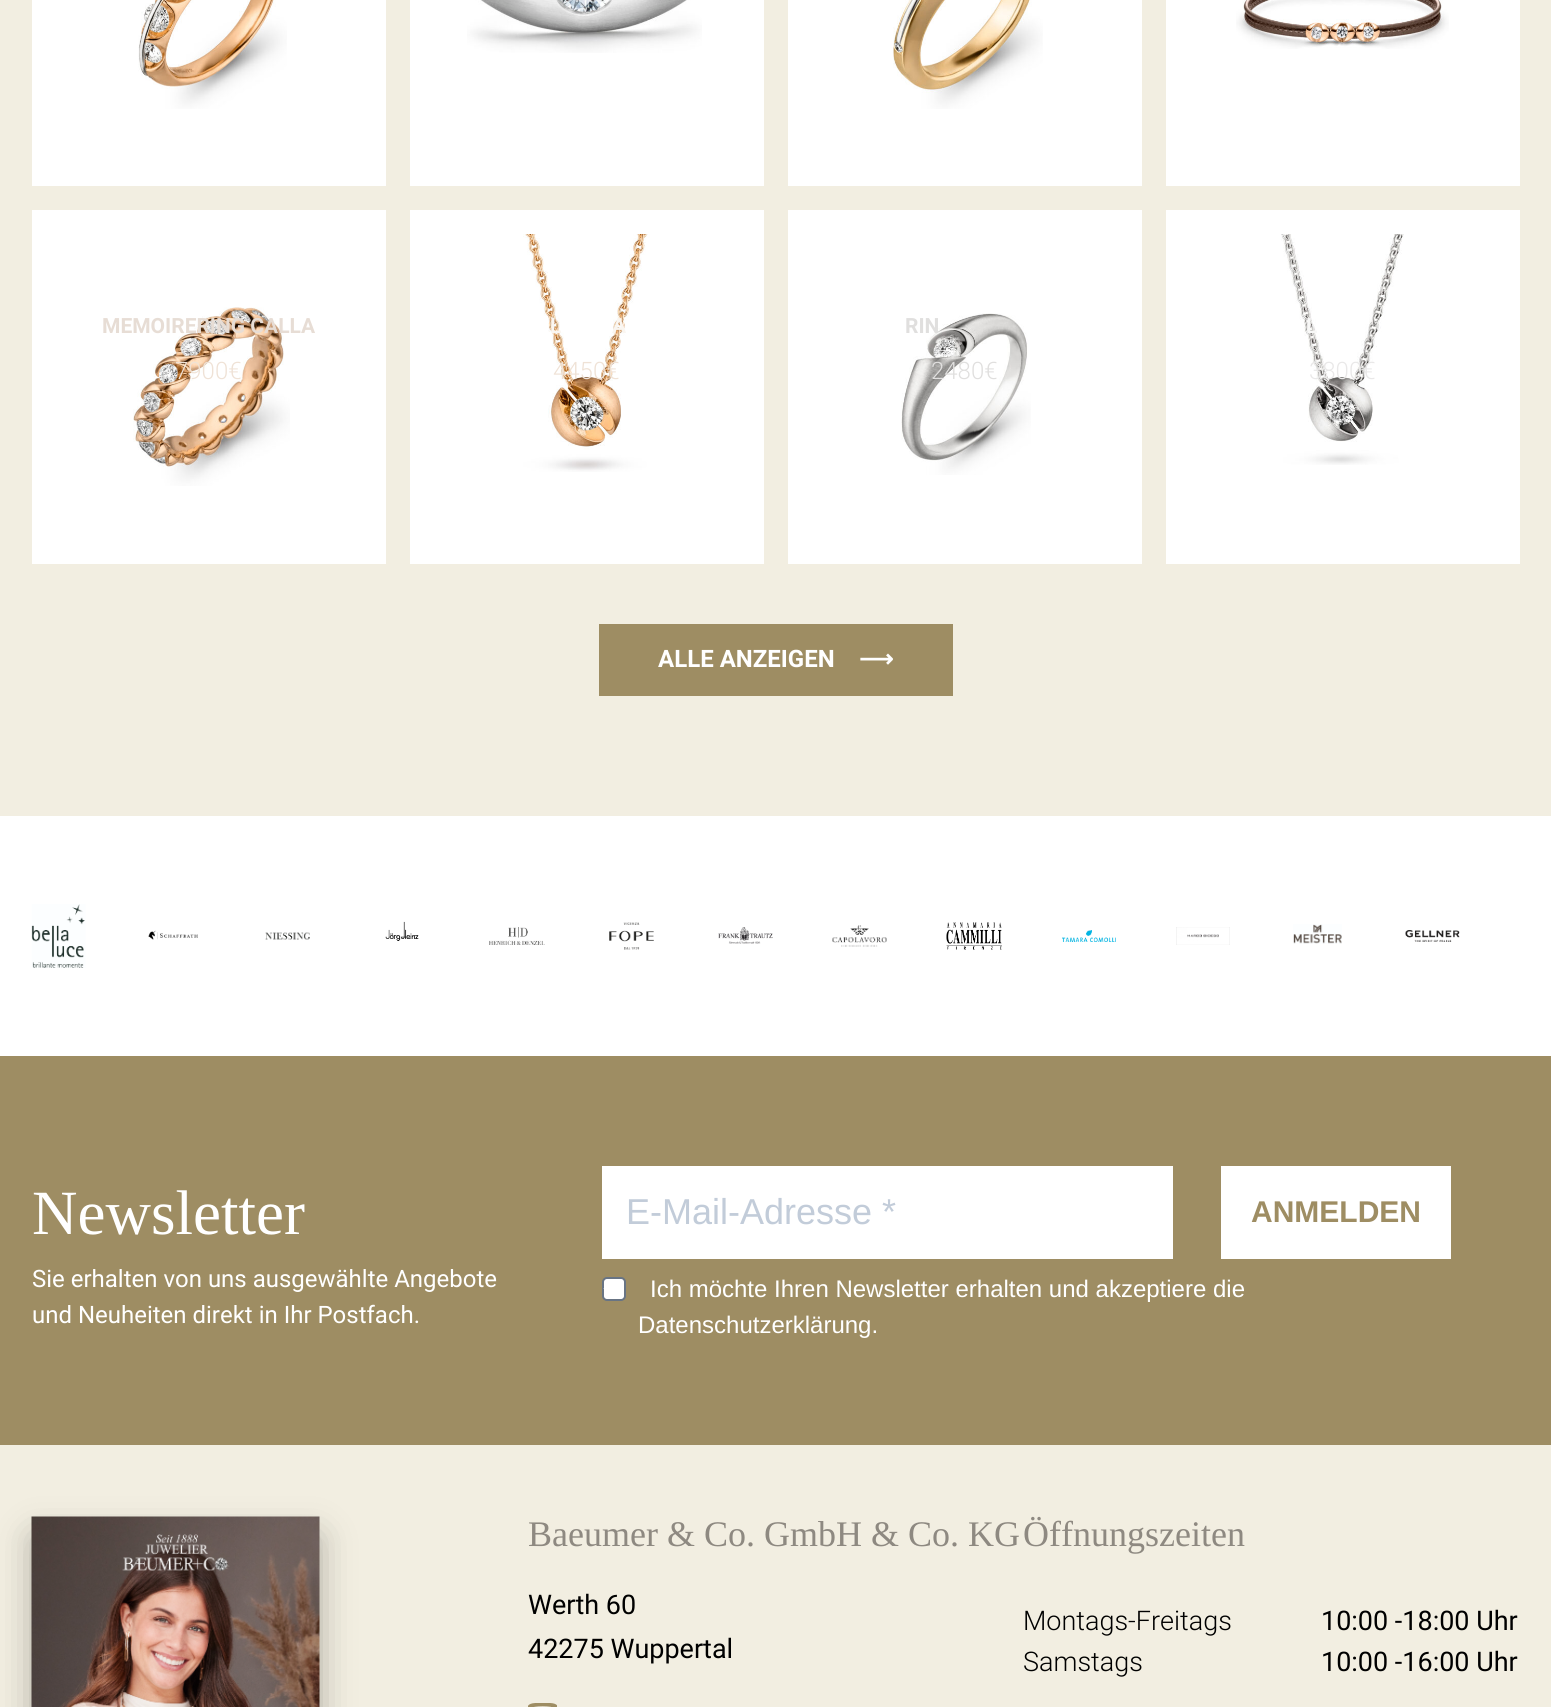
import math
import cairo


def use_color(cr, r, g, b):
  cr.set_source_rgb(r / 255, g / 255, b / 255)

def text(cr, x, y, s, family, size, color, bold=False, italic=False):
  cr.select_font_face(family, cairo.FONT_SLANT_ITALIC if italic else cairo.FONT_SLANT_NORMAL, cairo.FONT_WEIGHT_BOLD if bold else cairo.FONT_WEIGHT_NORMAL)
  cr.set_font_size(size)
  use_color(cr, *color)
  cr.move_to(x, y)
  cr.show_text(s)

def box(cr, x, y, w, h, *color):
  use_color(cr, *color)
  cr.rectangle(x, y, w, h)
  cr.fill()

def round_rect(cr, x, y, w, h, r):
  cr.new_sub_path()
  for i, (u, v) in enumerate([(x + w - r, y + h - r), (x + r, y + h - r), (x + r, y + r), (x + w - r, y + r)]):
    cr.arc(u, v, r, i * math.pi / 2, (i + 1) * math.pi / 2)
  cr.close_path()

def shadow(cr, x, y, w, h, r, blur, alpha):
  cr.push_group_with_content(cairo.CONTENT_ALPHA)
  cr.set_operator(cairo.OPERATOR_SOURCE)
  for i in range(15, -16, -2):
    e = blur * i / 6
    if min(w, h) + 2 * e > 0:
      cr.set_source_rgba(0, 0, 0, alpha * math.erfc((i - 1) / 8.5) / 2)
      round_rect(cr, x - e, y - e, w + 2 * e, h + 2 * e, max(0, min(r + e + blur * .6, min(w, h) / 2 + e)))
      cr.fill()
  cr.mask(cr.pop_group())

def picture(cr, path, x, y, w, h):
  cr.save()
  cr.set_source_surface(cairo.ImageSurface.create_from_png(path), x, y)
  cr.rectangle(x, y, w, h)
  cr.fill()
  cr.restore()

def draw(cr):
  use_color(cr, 242, 238, 225)
  cr.paint()
  box(cr, 32, 0, 354, 186, 255, 255, 255)
  picture(cr, "img_01.png", 138, 0, 149, 109)
  box(cr, 410, 0, 354, 186, 255, 255, 255)
  picture(cr, "img_02.png", 467, 0, 235, 53)
  box(cr, 788, 0, 354, 186, 255, 255, 255)
  picture(cr, "img_03.png", 893, 0, 150, 109)
  box(cr, 1166, 0, 354, 186, 255, 255, 255)
  picture(cr, "img_04.png", 1236, 0, 213, 49)
  box(cr, 32, 210, 354, 354, 255, 255, 255)
  picture(cr, "img_05.png", 133, 307, 157, 179)
  box(cr, 410, 210, 354, 354, 255, 255, 255)
  picture(cr, "img_06.png", 523, 234, 127, 238)
  box(cr, 788, 210, 354, 354, 255, 255, 255)
  picture(cr, "img_07.png", 901, 313, 130, 162)
  box(cr, 1166, 210, 354, 354, 255, 255, 255)
  picture(cr, "img_08.png", 1281, 234, 123, 231)
  box(cr, 599, 624, 354, 72, 158, 141, 99)
  box(cr, 0, 816, 1551, 240, 255, 255, 255)
  picture(cr, "img_09.png", 31, 904, 55, 64)
  picture(cr, "img_10.png", 148, 930, 50, 10)
  picture(cr, "img_11.png", 265, 932, 45, 8)
  picture(cr, "img_12.png", 385, 921, 34, 20)
  picture(cr, "img_13.png", 489, 927, 56, 18)
  picture(cr, "img_14.png", 609, 922, 45, 28)
  picture(cr, "img_15.png", 718, 927, 55, 17)
  picture(cr, "img_16.png", 832, 925, 55, 22)
  picture(cr, "img_17.png", 946, 922, 56, 28)
  picture(cr, "img_18.png", 1062, 930, 54, 12)
  picture(cr, "img_19.png", 1176, 927, 54, 18)
  picture(cr, "img_20.png", 1293, 924, 49, 20)
  picture(cr, "img_21.png", 1405, 930, 55, 12)
  box(cr, 0, 1056, 1551, 389, 158, 141, 99)
  box(cr, 602, 1166, 571, 93, 255, 255, 255)
  box(cr, 1221, 1166, 230, 93, 255, 255, 255)
  round_rect(cr, 603, 1278, 22, 22, 4)
  cr.fill_preserve()
  use_color(cr, 104, 116, 132)
  cr.stroke()
  use_color(cr, 255, 255, 255)
  cr.new_path()
  cr.move_to(606, 1286.5)
  cr.line_to(613.5, 1294)
  cr.line_to(611, 1296)
  cr.line_to(603.5, 1288.5)
  cr.close_path()
  cr.fill()
  use_color(cr, 0, 0, 0)
  shadow(cr, 32, 1535, 288, 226, 0, 18, 0.2)
  shadow(cr, 44, 1547, 264, 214, 0, 18, 0.2)
  picture(cr, "img_22.png", 31, 1516, 289, 191)
  picture(cr, "img_23.png", 528, 1703, 29, 4)
  text(cr, 102, 333, "MEMOIRERING CALLA", "Roboto", 21, (231, 221, 213), bold=True)
  text(cr, 175, 379, "7900€", "Roboto Light", 24, (239, 226, 214))
  text(cr, 550, 333, "L", "Roboto", 21, (250, 246, 241), bold=True)
  text(cr, 612, 333, "A", "Roboto", 21, (250, 246, 241), bold=True)
  text(cr, 553, 379, "4450€", "Roboto Light", 24, (239, 226, 214))
  text(cr, 905, 333, "RIN", "Roboto", 21, (224, 223, 222), bold=True)
  text(cr, 931, 379, "2480€", "Roboto Light", 24, (224, 223, 222))
  text(cr, 1306, 333, "L", "Roboto", 21, (248, 248, 247), bold=True)
  text(cr, 1309, 379, "3800€", "Roboto Light", 24, (233, 232, 232))
  text(cr, 658, 667, "ALLE ANZEIGEN", "Roboto", 24, (255, 255, 255), bold=True)
  text(cr, 859, 667, "⟶", "DejaVu Sans", 24, (255, 255, 255), bold=True)
  text(cr, 32, 1234, "Newsletter", "Liberation Serif", 63, (255, 255, 255))
  text(cr, 32, 1287, "Sie erhalten von uns ausgewählte Angebote", "Roboto", 24, (255, 255, 255))
  text(cr, 32, 1323, "und Neuheiten direkt in Ihr Postfach.", "Roboto", 24, (255, 255, 255))
  text(cr, 626, 1224, "E-Mail-Adresse *", "Liberation Sans", 36, (194, 204, 217))
  text(cr, 1251, 1222, "ANMELDEN", "Liberation Sans", 30, (158, 141, 99), bold=True)
  text(cr, 650, 1297, "Ich möchte Ihren Newsletter erhalten und akzeptiere die", "Liberation Sans", 24, (255, 255, 255))
  text(cr, 638, 1333, "Datenschutzerklärung.", "Liberation Sans", 24, (255, 255, 255))
  text(cr, 528, 1546, "Baeumer & Co. GmbH & Co. KG", "Liberation Serif", 36, (142, 137, 129))
  text(cr, 528, 1614, "Werth 60", "Roboto", 27, (0, 0, 0))
  text(cr, 528, 1658, "42275 Wuppertal", "Roboto", 27, (0, 0, 0))
  text(cr, 1023, 1546, "Öffnungszeiten", "Liberation Serif", 36, (142, 137, 129))
  text(cr, 1023, 1630, "Montags-Freitags", "Roboto Light", 27, (0, 0, 0))
  text(cr, 1321, 1630, "10:00 -18:00 Uhr", "Roboto", 27, (0, 0, 0))
  text(cr, 1023, 1671, "Samstags", "Roboto Light", 27, (0, 0, 0))
  text(cr, 1321, 1671, "10:00 -16:00 Uhr", "Roboto", 27, (0, 0, 0))


surface = cairo.ImageSurface(cairo.FORMAT_RGB24, 1551, 1707)
cr = cairo.Context(surface)
options = cairo.FontOptions()
options.set_hint_metrics(cairo.HINT_METRICS_OFF)
options.set_hint_style(cairo.HINT_STYLE_NONE)
cr.set_font_options(options)
cr.set_miter_limit(4)
draw(cr)
surface.write_to_png("out.png")
